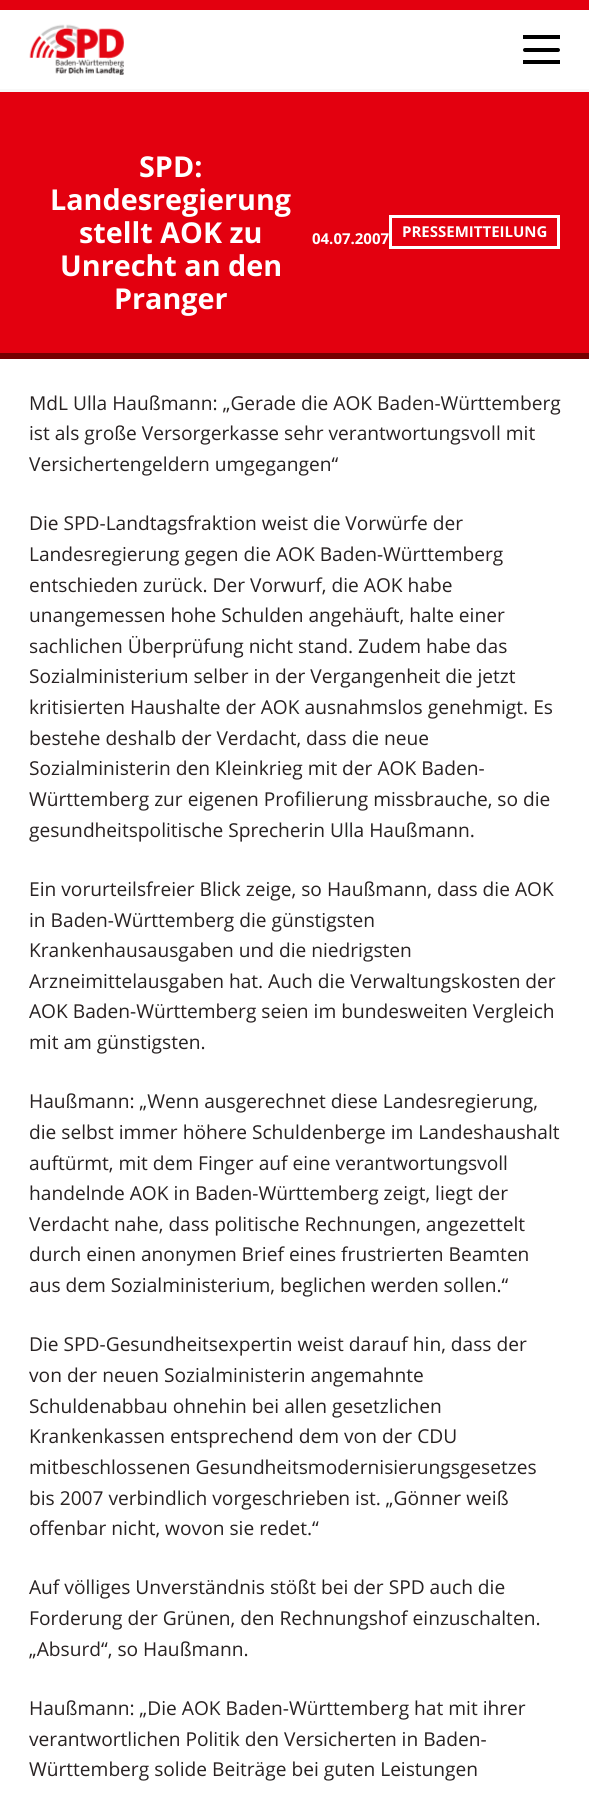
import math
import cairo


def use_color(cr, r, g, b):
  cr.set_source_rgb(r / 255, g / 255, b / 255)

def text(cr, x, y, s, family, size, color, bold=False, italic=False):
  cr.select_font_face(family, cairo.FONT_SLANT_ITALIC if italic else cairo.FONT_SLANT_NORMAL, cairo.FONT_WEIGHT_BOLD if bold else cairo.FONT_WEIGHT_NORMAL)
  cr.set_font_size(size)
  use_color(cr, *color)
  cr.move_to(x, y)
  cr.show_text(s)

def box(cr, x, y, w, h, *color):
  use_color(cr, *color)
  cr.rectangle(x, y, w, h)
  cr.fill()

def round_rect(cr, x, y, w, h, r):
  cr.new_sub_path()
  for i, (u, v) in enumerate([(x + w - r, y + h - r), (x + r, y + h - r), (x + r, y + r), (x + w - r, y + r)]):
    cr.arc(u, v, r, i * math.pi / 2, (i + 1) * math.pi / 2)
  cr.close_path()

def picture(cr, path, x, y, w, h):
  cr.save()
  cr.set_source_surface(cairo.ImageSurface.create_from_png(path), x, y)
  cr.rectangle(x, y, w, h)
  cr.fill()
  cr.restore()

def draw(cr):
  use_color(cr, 255, 255, 255)
  cr.paint()
  box(cr, 0, 0, 589, 10, 227, 0, 15)
  box(cr, 0, 89, 589, 3, 248, 248, 248)
  picture(cr, "img_01.png", 29, 24, 95, 51)
  use_color(cr, 0, 0, 0)
  round_rect(cr, 523, 48, 37, 4, 2)
  cr.fill()
  box(cr, 523, 35, 37, 4, 0, 0, 0)
  box(cr, 523, 60, 37, 4, 0, 0, 0)
  box(cr, 0, 92, 589, 261, 227, 0, 15)
  box(cr, 0, 353, 589, 6, 118, 0, 0)
  cr.rectangle(390.5, 216.5, 168, 31)
  use_color(cr, 255, 255, 255)
  cr.set_line_width(3)
  cr.stroke()
  text(cr, 139, 177, "SPD:", "Open Sans", 28.75, (255, 255, 255), bold=True)
  text(cr, 50, 210, "Landesregierung", "Open Sans", 28.75, (255, 255, 255), bold=True)
  text(cr, 79, 243, "stellt AOK zu", "Open Sans", 28.75, (255, 255, 255), bold=True)
  text(cr, 60, 276, "Unrecht an den", "Open Sans", 28.75, (255, 255, 255), bold=True)
  text(cr, 114, 309, "Pranger", "Open Sans", 28.75, (255, 255, 255), bold=True)
  text(cr, 312, 244, "04.07.2007", "Open Sans", 15, (255, 255, 255), bold=True)
  text(cr, 402, 237, "PRESSEMITTEILUNG", "Open Sans", 15, (255, 255, 255), bold=True)
  text(cr, 29, 410, "MdL Ulla Haußmann: „Gerade die AOK Baden-Württemberg", "Open Sans", 19.15, (40, 34, 34))
  text(cr, 29, 440, "ist als große Versorgerkasse sehr verantwortungsvoll mit", "Open Sans", 19.15, (40, 34, 34))
  text(cr, 29, 471, "Versichertengeldern umgegangen“", "Open Sans", 19.15, (40, 34, 34))
  text(cr, 29, 530, "Die SPD-Landtagsfraktion weist die Vorwürfe der", "Open Sans", 19.15, (40, 34, 34))
  text(cr, 29, 561, "Landesregierung gegen die AOK Baden-Württemberg", "Open Sans", 19.15, (40, 34, 34))
  text(cr, 29, 592, "entschieden zurück. Der Vorwurf, die AOK habe", "Open Sans", 19.15, (40, 34, 34))
  text(cr, 29, 622, "unangemessen hohe Schulden angehäuft, halte einer", "Open Sans", 19.15, (40, 34, 34))
  text(cr, 29, 653, "sachlichen Überprüfung nicht stand. Zudem habe das", "Open Sans", 19.15, (40, 34, 34))
  text(cr, 29, 683, "Sozialministerium selber in der Vergangenheit die jetzt", "Open Sans", 19.15, (40, 34, 34))
  text(cr, 29, 714, "kritisierten Haushalte der AOK ausnahmslos genehmigt. Es", "Open Sans", 19.15, (40, 34, 34))
  text(cr, 29, 745, "bestehe deshalb der Verdacht, dass die neue", "Open Sans", 19.15, (40, 34, 34))
  text(cr, 29, 775, "Sozialministerin den Kleinkrieg mit der AOK Baden-", "Open Sans", 19.15, (40, 34, 34))
  text(cr, 29, 806, "Württemberg zur eigenen Profilierung missbrauche, so die", "Open Sans", 19.15, (40, 34, 34))
  text(cr, 29, 837, "gesundheitspolitische Sprecherin Ulla Haußmann.", "Open Sans", 19.15, (40, 34, 34))
  text(cr, 29, 896, "Ein vorurteilsfreier Blick zeige, so Haußmann, dass die AOK", "Open Sans", 19.15, (40, 34, 34))
  text(cr, 29, 927, "in Baden-Württemberg die günstigsten", "Open Sans", 19.15, (40, 34, 34))
  text(cr, 29, 957, "Krankenhausausgaben und die niedrigsten", "Open Sans", 19.15, (40, 34, 34))
  text(cr, 29, 988, "Arzneimittelausgaben hat. Auch die Verwaltungskosten der", "Open Sans", 19.15, (40, 34, 34))
  text(cr, 29, 1018, "AOK Baden-Württemberg seien im bundesweiten Vergleich", "Open Sans", 19.15, (40, 34, 34))
  text(cr, 29, 1049, "mit am günstigsten.", "Open Sans", 19.15, (40, 34, 34))
  text(cr, 29, 1108, "Haußmann: „Wenn ausgerechnet diese Landesregierung,", "Open Sans", 19.15, (40, 34, 34))
  text(cr, 29, 1139, "die selbst immer höhere Schuldenberge im Landeshaushalt", "Open Sans", 19.15, (40, 34, 34))
  text(cr, 29, 1170, "auftürmt, mit dem Finger auf eine verantwortungsvoll", "Open Sans", 19.15, (40, 34, 34))
  text(cr, 29, 1200, "handelnde AOK in Baden-Württemberg zeigt, liegt der", "Open Sans", 19.15, (40, 34, 34))
  text(cr, 29, 1231, "Verdacht nahe, dass politische Rechnungen, angezettelt", "Open Sans", 19.15, (40, 34, 34))
  text(cr, 29, 1261, "durch einen anonymen Brief eines frustrierten Beamten", "Open Sans", 19.15, (40, 34, 34))
  text(cr, 29, 1292, "aus dem Sozialministerium, beglichen werden sollen.“", "Open Sans", 19.15, (40, 34, 34))
  text(cr, 29, 1351, "Die SPD-Gesundheitsexpertin weist darauf hin, dass der", "Open Sans", 19.15, (40, 34, 34))
  text(cr, 29, 1382, "von der neuen Sozialministerin angemahnte", "Open Sans", 19.15, (40, 34, 34))
  text(cr, 29, 1413, "Schuldenabbau ohnehin bei allen gesetzlichen", "Open Sans", 19.15, (40, 34, 34))
  text(cr, 29, 1443, "Krankenkassen entsprechend dem von der CDU", "Open Sans", 19.15, (40, 34, 34))
  text(cr, 29, 1474, "mitbeschlossenen Gesundheitsmodernisierungsgesetzes", "Open Sans", 19.15, (40, 34, 34))
  text(cr, 29, 1505, "bis 2007 verbindlich vorgeschrieben ist. „Gönner weiß", "Open Sans", 19.15, (40, 34, 34))
  text(cr, 29, 1535, "offenbar nicht, wovon sie redet.“", "Open Sans", 19.15, (40, 34, 34))
  text(cr, 29, 1594, "Auf völliges Unverständnis stößt bei der SPD auch die", "Open Sans", 19.15, (40, 34, 34))
  text(cr, 29, 1625, "Forderung der Grünen, den Rechnungshof einzuschalten.", "Open Sans", 19.15, (40, 34, 34))
  text(cr, 29, 1656, "„Absurd“, so Haußmann.", "Open Sans", 19.15, (40, 34, 34))
  text(cr, 29, 1715, "Haußmann: „Die AOK Baden-Württemberg hat mit ihrer", "Open Sans", 19.15, (40, 34, 34))
  text(cr, 29, 1746, "verantwortlichen Politik den Versicherten in Baden-", "Open Sans", 19.15, (40, 34, 34))
  text(cr, 29, 1776, "Württemberg solide Beiträge bei guten Leistungen", "Open Sans", 19.15, (40, 34, 34))


surface = cairo.ImageSurface(cairo.FORMAT_RGB24, 589, 1803)
cr = cairo.Context(surface)
options = cairo.FontOptions()
options.set_hint_metrics(cairo.HINT_METRICS_OFF)
options.set_hint_style(cairo.HINT_STYLE_NONE)
cr.set_font_options(options)
cr.set_miter_limit(4)
draw(cr)
surface.write_to_png("out.png")
